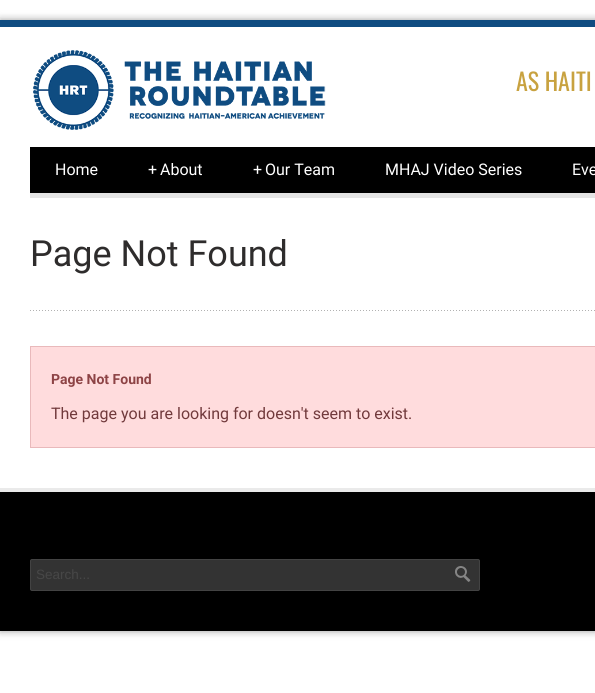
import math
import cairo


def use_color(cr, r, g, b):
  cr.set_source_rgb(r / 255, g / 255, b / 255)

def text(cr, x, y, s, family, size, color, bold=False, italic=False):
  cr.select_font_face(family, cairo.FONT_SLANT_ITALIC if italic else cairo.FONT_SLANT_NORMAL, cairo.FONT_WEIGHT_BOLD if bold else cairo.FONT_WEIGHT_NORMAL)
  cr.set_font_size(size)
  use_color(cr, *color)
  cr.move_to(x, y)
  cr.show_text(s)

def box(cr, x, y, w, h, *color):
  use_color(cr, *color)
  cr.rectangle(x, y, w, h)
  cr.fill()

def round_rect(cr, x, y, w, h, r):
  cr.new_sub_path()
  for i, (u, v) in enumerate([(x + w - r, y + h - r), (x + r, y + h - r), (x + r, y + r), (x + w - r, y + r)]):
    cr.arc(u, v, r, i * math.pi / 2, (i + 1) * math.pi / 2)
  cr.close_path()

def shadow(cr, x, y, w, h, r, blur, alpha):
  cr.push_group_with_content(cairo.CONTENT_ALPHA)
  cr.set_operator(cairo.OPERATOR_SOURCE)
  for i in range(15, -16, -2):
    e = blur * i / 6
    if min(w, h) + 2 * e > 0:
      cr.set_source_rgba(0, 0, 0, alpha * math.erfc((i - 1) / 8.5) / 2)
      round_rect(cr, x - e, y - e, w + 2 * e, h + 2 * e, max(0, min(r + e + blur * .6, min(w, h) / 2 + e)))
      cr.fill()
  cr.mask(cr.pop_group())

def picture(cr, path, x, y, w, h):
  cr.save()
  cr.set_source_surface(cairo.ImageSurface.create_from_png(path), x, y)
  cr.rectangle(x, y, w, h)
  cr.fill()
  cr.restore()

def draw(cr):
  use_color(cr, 255, 255, 255)
  cr.paint()
  cr.save()
  cr.set_fill_rule(cairo.FILL_RULE_EVEN_ODD)
  cr.new_path()
  cr.move_to(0, 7)
  cr.line_to(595, 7)
  cr.line_to(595, 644)
  cr.line_to(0, 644)
  cr.close_path()
  cr.move_to(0, 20)
  cr.line_to(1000, 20)
  cr.line_to(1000, 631)
  cr.line_to(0, 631)
  cr.close_path()
  cr.clip()
  use_color(cr, 0, 0, 0)
  shadow(cr, 0, 20, 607, 611, 0, 4, 0.4)
  cr.restore()
  box(cr, 0, 20, 595, 7, 15, 76, 129)
  picture(cr, "img_01.png", 33, 50, 293, 80)
  box(cr, 30, 147, 565, 46, 0, 0, 0)
  picture(cr, "img_02.png", 30, 310, 565, 1)
  box(cr, 30, 193, 565, 5, 229, 229, 229)
  use_color(cr, 255, 220, 221)
  cr.rectangle(30.5, 346.5, 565, 101)
  cr.fill_preserve()
  use_color(cr, 233, 185, 187)
  cr.set_line_width(1)
  cr.stroke()
  box(cr, 0, 488, 595, 4, 234, 234, 234)
  box(cr, 0, 492, 595, 139, 0, 0, 0)
  use_color(cr, 51, 51, 51)
  round_rect(cr, 30.5, 559.5, 449, 31, 1.5)
  cr.fill_preserve()
  use_color(cr, 67, 67, 67)
  cr.stroke()
  picture(cr, "img_03.png", 455, 566, 16, 16)
  text(cr, 516, 91, "AS HAITI", "Oswald", 24, (200, 162, 64))
  text(cr, 55, 175, "Home", "Roboto", 16, (255, 255, 255))
  text(cr, 148, 175, "+", "Roboto", 16, (255, 255, 255))
  text(cr, 160, 175, "About", "Roboto", 16, (255, 255, 255))
  text(cr, 253, 175, "+", "Roboto", 16, (255, 255, 255))
  text(cr, 265, 175, "Our Team", "Roboto", 16, (255, 255, 255))
  text(cr, 385, 175, "MHAJ Video Series", "Roboto", 16, (255, 255, 255))
  text(cr, 572, 175, "Eve", "Roboto", 16, (255, 255, 255))
  text(cr, 30, 266, "Page Not Found", "Roboto", 36, (46, 44, 44))
  text(cr, 51, 384, "Page Not Found", "Roboto", 14, (141, 67, 69), bold=True)
  text(cr, 51, 419, "The page you are looking for doesn't seem to exist.", "Roboto", 16, (113, 58, 60))
  text(cr, 36, 579, "Search...", "Liberation Sans", 13.5, (71, 71, 71))


surface = cairo.ImageSurface(cairo.FORMAT_RGB24, 595, 693)
cr = cairo.Context(surface)
options = cairo.FontOptions()
options.set_hint_metrics(cairo.HINT_METRICS_OFF)
options.set_hint_style(cairo.HINT_STYLE_NONE)
cr.set_font_options(options)
cr.set_miter_limit(4)
draw(cr)
surface.write_to_png("out.png")
